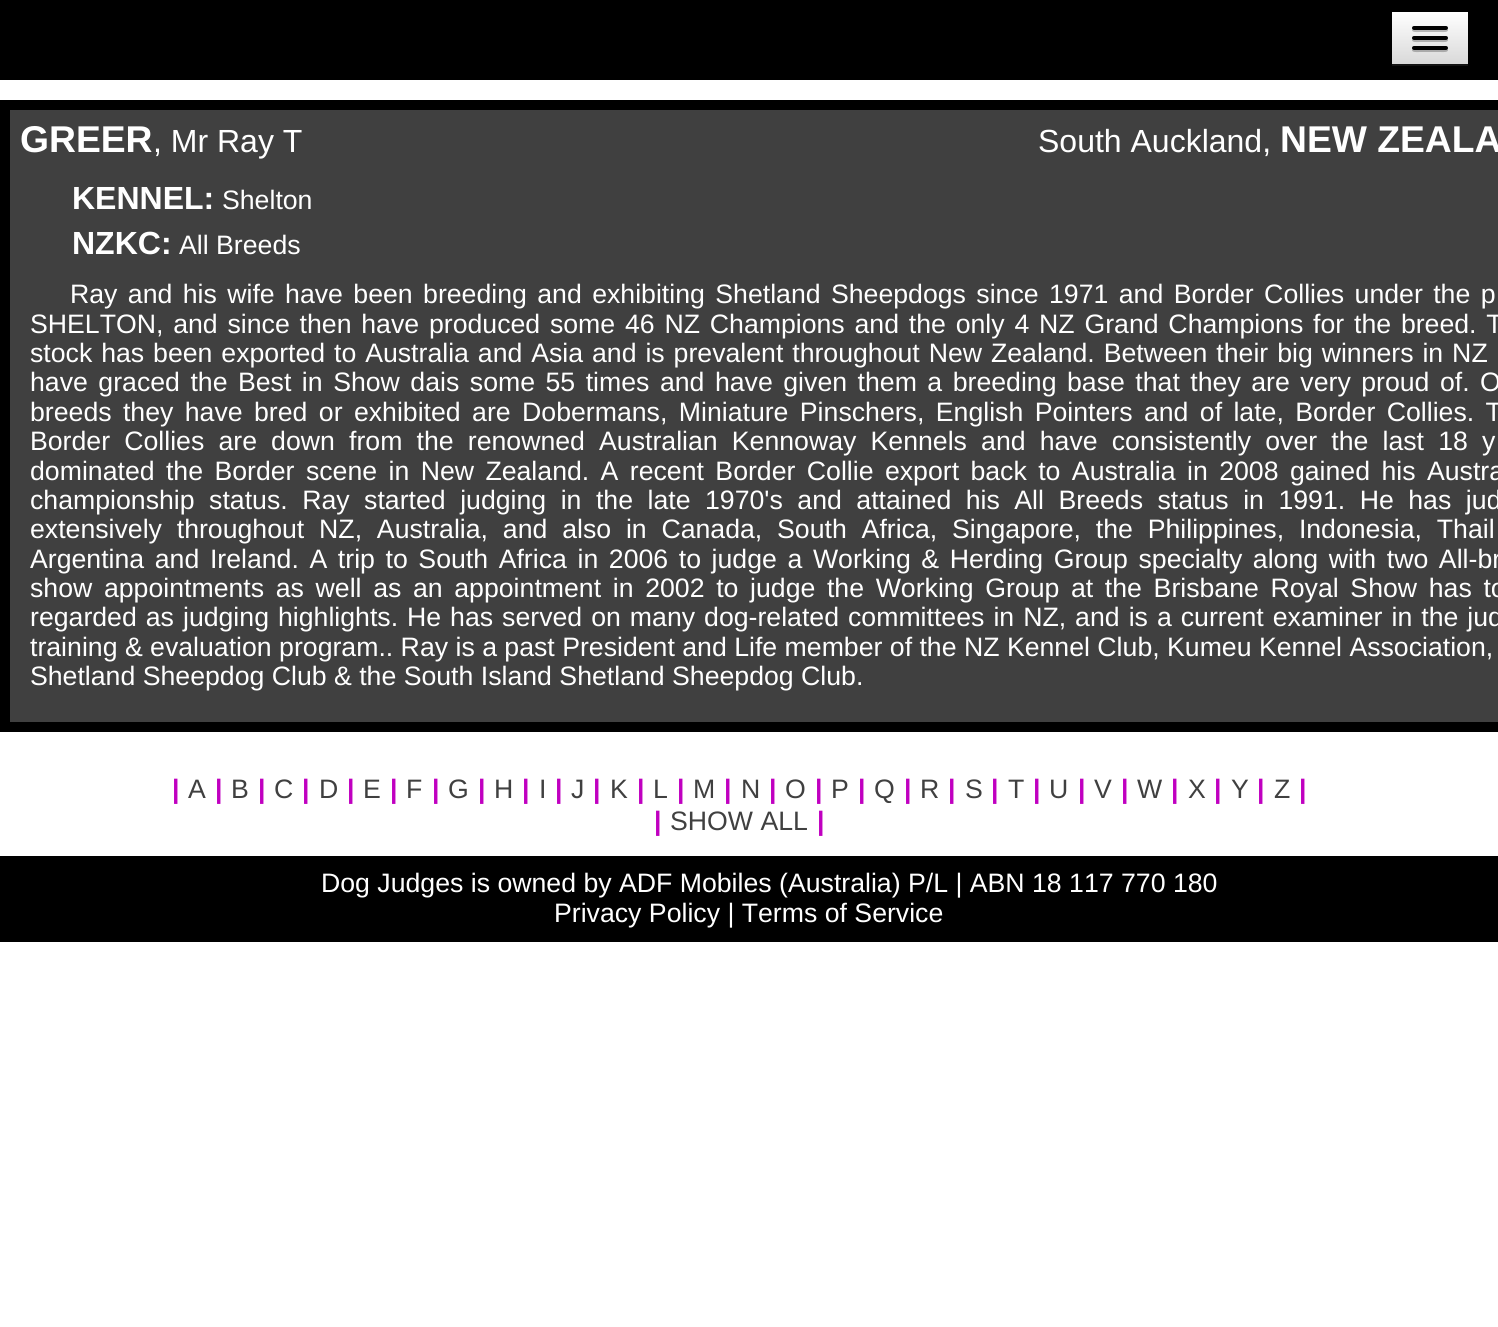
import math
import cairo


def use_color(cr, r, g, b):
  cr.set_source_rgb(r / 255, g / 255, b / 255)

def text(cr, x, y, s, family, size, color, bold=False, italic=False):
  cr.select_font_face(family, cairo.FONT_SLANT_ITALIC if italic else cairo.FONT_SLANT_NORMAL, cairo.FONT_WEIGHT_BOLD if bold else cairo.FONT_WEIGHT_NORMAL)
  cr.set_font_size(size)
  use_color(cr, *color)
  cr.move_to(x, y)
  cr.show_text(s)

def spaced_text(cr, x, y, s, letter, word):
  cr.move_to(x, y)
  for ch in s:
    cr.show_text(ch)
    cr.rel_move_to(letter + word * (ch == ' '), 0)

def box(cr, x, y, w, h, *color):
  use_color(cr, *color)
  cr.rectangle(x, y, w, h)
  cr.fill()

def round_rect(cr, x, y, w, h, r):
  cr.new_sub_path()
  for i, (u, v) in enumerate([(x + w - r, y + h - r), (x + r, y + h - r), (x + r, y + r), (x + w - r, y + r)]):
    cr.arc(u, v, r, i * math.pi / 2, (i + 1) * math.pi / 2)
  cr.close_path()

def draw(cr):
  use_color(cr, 255, 255, 255)
  cr.paint()
  box(cr, 0, 0, 1498, 80, 0, 0, 0)
  box(cr, 1392, 64, 76, 2, 19, 19, 19)
  gradient = cairo.LinearGradient(1430, 12, 1430, 64)
  gradient.add_color_stop_rgba(0, 1, 1, 1, 1)
  gradient.add_color_stop_rgba(1, 0.851, 0.851, 0.851, 1)
  cr.set_source(gradient)
  cr.rectangle(1392, 12, 76, 52)
  cr.fill()
  use_color(cr, 181, 181, 181)
  cr.new_path()
  cr.move_to(1412.5, 29)
  cr.curve_to(1410, 33, 1419, 32, 1419.5, 32)
  cr.line_to(1440.5, 32)
  cr.curve_to(1441, 32, 1450, 33, 1447.5, 29)
  cr.curve_to(1447.5, 29.5, 1446.5, 30, 1446, 30)
  cr.line_to(1414, 30)
  cr.curve_to(1413.5, 30, 1412.5, 29.5, 1412.5, 29)
  cr.close_path()
  cr.fill()
  use_color(cr, 0, 0, 0)
  round_rect(cr, 1412, 26, 36, 4, 2)
  cr.fill()
  use_color(cr, 175, 175, 175)
  cr.new_path()
  cr.move_to(1412.5, 39)
  cr.curve_to(1410, 43, 1419, 42, 1419.5, 42)
  cr.line_to(1440.5, 42)
  cr.curve_to(1441, 42, 1450, 43, 1447.5, 39)
  cr.curve_to(1447.5, 39.5, 1446.5, 40, 1446, 40)
  cr.line_to(1414, 40)
  cr.curve_to(1413.5, 40, 1412.5, 39.5, 1412.5, 39)
  cr.close_path()
  cr.fill()
  use_color(cr, 0, 0, 0)
  round_rect(cr, 1412, 36, 36, 4, 2)
  cr.fill()
  use_color(cr, 170, 170, 170)
  cr.new_path()
  cr.move_to(1412.5, 49)
  cr.curve_to(1410, 53, 1419, 52, 1419.5, 52)
  cr.line_to(1440.5, 52)
  cr.curve_to(1441, 52, 1450, 53, 1447.5, 49)
  cr.curve_to(1447.5, 49.5, 1446.5, 50, 1446, 50)
  cr.line_to(1414, 50)
  cr.curve_to(1413.5, 50, 1412.5, 49.5, 1412.5, 49)
  cr.close_path()
  cr.fill()
  use_color(cr, 0, 0, 0)
  round_rect(cr, 1412, 46, 36, 4, 2)
  cr.fill()
  box(cr, 0, 100, 1498, 632, 0, 0, 0)
  box(cr, 10, 110, 1488, 612, 64, 64, 64)
  box(cr, 0, 856, 1498, 86, 0, 0, 0)
  text(cr, 20, 152, "GREER", "Liberation Sans", 37.25, (255, 255, 255), bold=True)
  text(cr, 153, 152, ", Mr Ray T", "Liberation Sans", 32, (255, 255, 255))
  text(cr, 1038, 152, "South Auckland,", "Liberation Sans", 32, (255, 255, 255))
  text(cr, 1280, 152, "NEW ZEALA", "Liberation Sans", 37.25, (255, 255, 255), bold=True)
  text(cr, 72, 209, "KENNEL:", "Liberation Sans", 32, (255, 255, 255), bold=True)
  text(cr, 222, 209, "Shelton", "Liberation Sans", 26.67, (255, 255, 255))
  text(cr, 72, 254, "NZKC:", "Liberation Sans", 32, (255, 255, 255), bold=True)
  text(cr, 179, 254, "All Breeds", "Liberation Sans", 26.67, (255, 255, 255))
  spaced_text(cr, 70, 303, "Ray and his wife have been breeding and exhibiting Shetland Sheepdogs since 1971 and Border Collies under the p", 0, 3)
  spaced_text(cr, 30, 333, "SHELTON, and since then have produced some 46 NZ Champions and the only 4 NZ Grand Champions for the breed. T", 0, 2.4)
  spaced_text(cr, 30, 362, "stock has been exported to Australia and Asia and is prevalent throughout New Zealand. Between their big winners in NZ", 0, 1.5)
  spaced_text(cr, 30, 391, "have graced the Best in Show dais some 55 times and have given them a breeding base that they are very proud of. O", 0, 3.1)
  spaced_text(cr, 30, 421, "breeds they have bred or exhibited are Dobermans, Miniature Pinschers, English Pointers and of late, Border Collies. T", 0, 4)
  spaced_text(cr, 30, 450, "Border Collies are down from the renowned Australian Kennoway Kennels and have consistently over the last 18 y", 0, 6.75)
  spaced_text(cr, 30, 480, "dominated the Border scene in New Zealand. A recent Border Collie export back to Australia in 2008 gained his Austra", 0, 4)
  spaced_text(cr, 30, 509, "championship status. Ray started judging in the late 1970's and attained his All Breeds status in 1991. He has jud", 0, 7.1)
  spaced_text(cr, 30, 538, "extensively throughout NZ, Australia, and also in Canada, South Africa, Singapore, the Philippines, Indonesia, Thail", 0, 7.4)
  spaced_text(cr, 30, 568, "Argentina and Ireland. A trip to South Africa in 2006 to judge a Working & Herding Group specialty along with two All-br", 0, 3.2)
  spaced_text(cr, 30, 597, "show appointments as well as an appointment in 2002 to judge the Working Group at the Brisbane Royal Show has to", 0, 4.25)
  spaced_text(cr, 30, 626, "regarded as judging highlights.", 0, 1.6)
  spaced_text(cr, 407, 626, "He has served on many dog-related committees in NZ, and is a current examiner in the jud", 0, 1.6)
  text(cr, 30, 656, "training & evaluation program.. Ray is a past President and Life member of the NZ Kennel Club, Kumeu Kennel Association,", "Liberation Sans", 26.67, (255, 255, 255))
  text(cr, 30, 685, "Shetland Sheepdog Club & the South Island Shetland Sheepdog Club.", "Liberation Sans", 26.67, (255, 255, 255))
  text(cr, 172, 798, "|", "Liberation Sans", 26.67, (192, 0, 192), bold=True)
  text(cr, 188, 798, "A", "Liberation Sans", 26.67, (64, 64, 64))
  text(cr, 215, 798, "|", "Liberation Sans", 26.67, (192, 0, 192), bold=True)
  text(cr, 231, 798, "B", "Liberation Sans", 26.67, (64, 64, 64))
  text(cr, 258, 798, "|", "Liberation Sans", 26.67, (192, 0, 192), bold=True)
  text(cr, 274, 798, "C", "Liberation Sans", 26.67, (64, 64, 64))
  text(cr, 302, 798, "|", "Liberation Sans", 26.67, (192, 0, 192), bold=True)
  text(cr, 319, 798, "D", "Liberation Sans", 26.67, (64, 64, 64))
  text(cr, 347, 798, "|", "Liberation Sans", 26.67, (192, 0, 192), bold=True)
  text(cr, 363, 798, "E", "Liberation Sans", 26.67, (64, 64, 64))
  text(cr, 390, 798, "|", "Liberation Sans", 26.67, (192, 0, 192), bold=True)
  text(cr, 406, 798, "F", "Liberation Sans", 26.67, (64, 64, 64))
  text(cr, 432, 798, "|", "Liberation Sans", 26.67, (192, 0, 192), bold=True)
  text(cr, 448, 798, "G", "Liberation Sans", 26.67, (64, 64, 64))
  text(cr, 478, 798, "|", "Liberation Sans", 26.67, (192, 0, 192), bold=True)
  text(cr, 494, 798, "H", "Liberation Sans", 26.67, (64, 64, 64))
  text(cr, 522, 798, "|", "Liberation Sans", 26.67, (192, 0, 192), bold=True)
  text(cr, 539, 798, "I", "Liberation Sans", 26.67, (64, 64, 64))
  text(cr, 555, 798, "|", "Liberation Sans", 26.67, (192, 0, 192), bold=True)
  text(cr, 571, 798, "J", "Liberation Sans", 26.67, (64, 64, 64))
  text(cr, 593, 798, "|", "Liberation Sans", 26.67, (192, 0, 192), bold=True)
  text(cr, 610, 798, "K", "Liberation Sans", 26.67, (64, 64, 64))
  text(cr, 637, 798, "|", "Liberation Sans", 26.67, (192, 0, 192), bold=True)
  text(cr, 653, 798, "L", "Liberation Sans", 26.67, (64, 64, 64))
  text(cr, 677, 798, "|", "Liberation Sans", 26.67, (192, 0, 192), bold=True)
  text(cr, 693, 798, "M", "Liberation Sans", 26.67, (64, 64, 64))
  text(cr, 724, 798, "|", "Liberation Sans", 26.67, (192, 0, 192), bold=True)
  text(cr, 741, 798, "N", "Liberation Sans", 26.67, (64, 64, 64))
  text(cr, 769, 798, "|", "Liberation Sans", 26.67, (192, 0, 192), bold=True)
  text(cr, 785, 798, "O", "Liberation Sans", 26.67, (64, 64, 64))
  text(cr, 815, 798, "|", "Liberation Sans", 26.67, (192, 0, 192), bold=True)
  text(cr, 831, 798, "P", "Liberation Sans", 26.67, (64, 64, 64))
  text(cr, 858, 798, "|", "Liberation Sans", 26.67, (192, 0, 192), bold=True)
  text(cr, 874, 798, "Q", "Liberation Sans", 26.67, (64, 64, 64))
  text(cr, 904, 798, "|", "Liberation Sans", 26.67, (192, 0, 192), bold=True)
  text(cr, 920, 798, "R", "Liberation Sans", 26.67, (64, 64, 64))
  text(cr, 948, 798, "|", "Liberation Sans", 26.67, (192, 0, 192), bold=True)
  text(cr, 965, 798, "S", "Liberation Sans", 26.67, (64, 64, 64))
  text(cr, 991, 798, "|", "Liberation Sans", 26.67, (192, 0, 192), bold=True)
  text(cr, 1008, 798, "T", "Liberation Sans", 26.67, (64, 64, 64))
  text(cr, 1033, 798, "|", "Liberation Sans", 26.67, (192, 0, 192), bold=True)
  text(cr, 1049, 798, "U", "Liberation Sans", 26.67, (64, 64, 64))
  text(cr, 1078, 798, "|", "Liberation Sans", 26.67, (192, 0, 192), bold=True)
  text(cr, 1094, 798, "V", "Liberation Sans", 26.67, (64, 64, 64))
  text(cr, 1121, 798, "|", "Liberation Sans", 26.67, (192, 0, 192), bold=True)
  text(cr, 1137, 798, "W", "Liberation Sans", 26.67, (64, 64, 64))
  text(cr, 1171, 798, "|", "Liberation Sans", 26.67, (192, 0, 192), bold=True)
  text(cr, 1188, 798, "X", "Liberation Sans", 26.67, (64, 64, 64))
  text(cr, 1214, 798, "|", "Liberation Sans", 26.67, (192, 0, 192), bold=True)
  text(cr, 1231, 798, "Y", "Liberation Sans", 26.67, (64, 64, 64))
  text(cr, 1257, 798, "|", "Liberation Sans", 26.67, (192, 0, 192), bold=True)
  text(cr, 1274, 798, "Z", "Liberation Sans", 26.67, (64, 64, 64))
  text(cr, 1299, 798, "|", "Liberation Sans", 26.67, (192, 0, 192), bold=True)
  text(cr, 654, 830, "|", "Liberation Sans", 26.67, (192, 0, 192), bold=True)
  text(cr, 670, 830, "SHOW ALL", "Liberation Sans", 26.67, (64, 64, 64))
  text(cr, 817, 830, "|", "Liberation Sans", 26.67, (192, 0, 192), bold=True)
  text(cr, 321, 892, "Dog Judges is owned by ADF Mobiles (Australia) P/L | ABN 18 117 770 180", "Liberation Sans", 26.67, (255, 255, 255))
  text(cr, 554, 922, "Privacy Policy | Terms of Service", "Liberation Sans", 26.67, (255, 255, 255))


surface = cairo.ImageSurface(cairo.FORMAT_RGB24, 1498, 1327)
cr = cairo.Context(surface)
options = cairo.FontOptions()
options.set_hint_metrics(cairo.HINT_METRICS_OFF)
options.set_hint_style(cairo.HINT_STYLE_NONE)
cr.set_font_options(options)
cr.set_miter_limit(4)
draw(cr)
surface.write_to_png("out.png")
